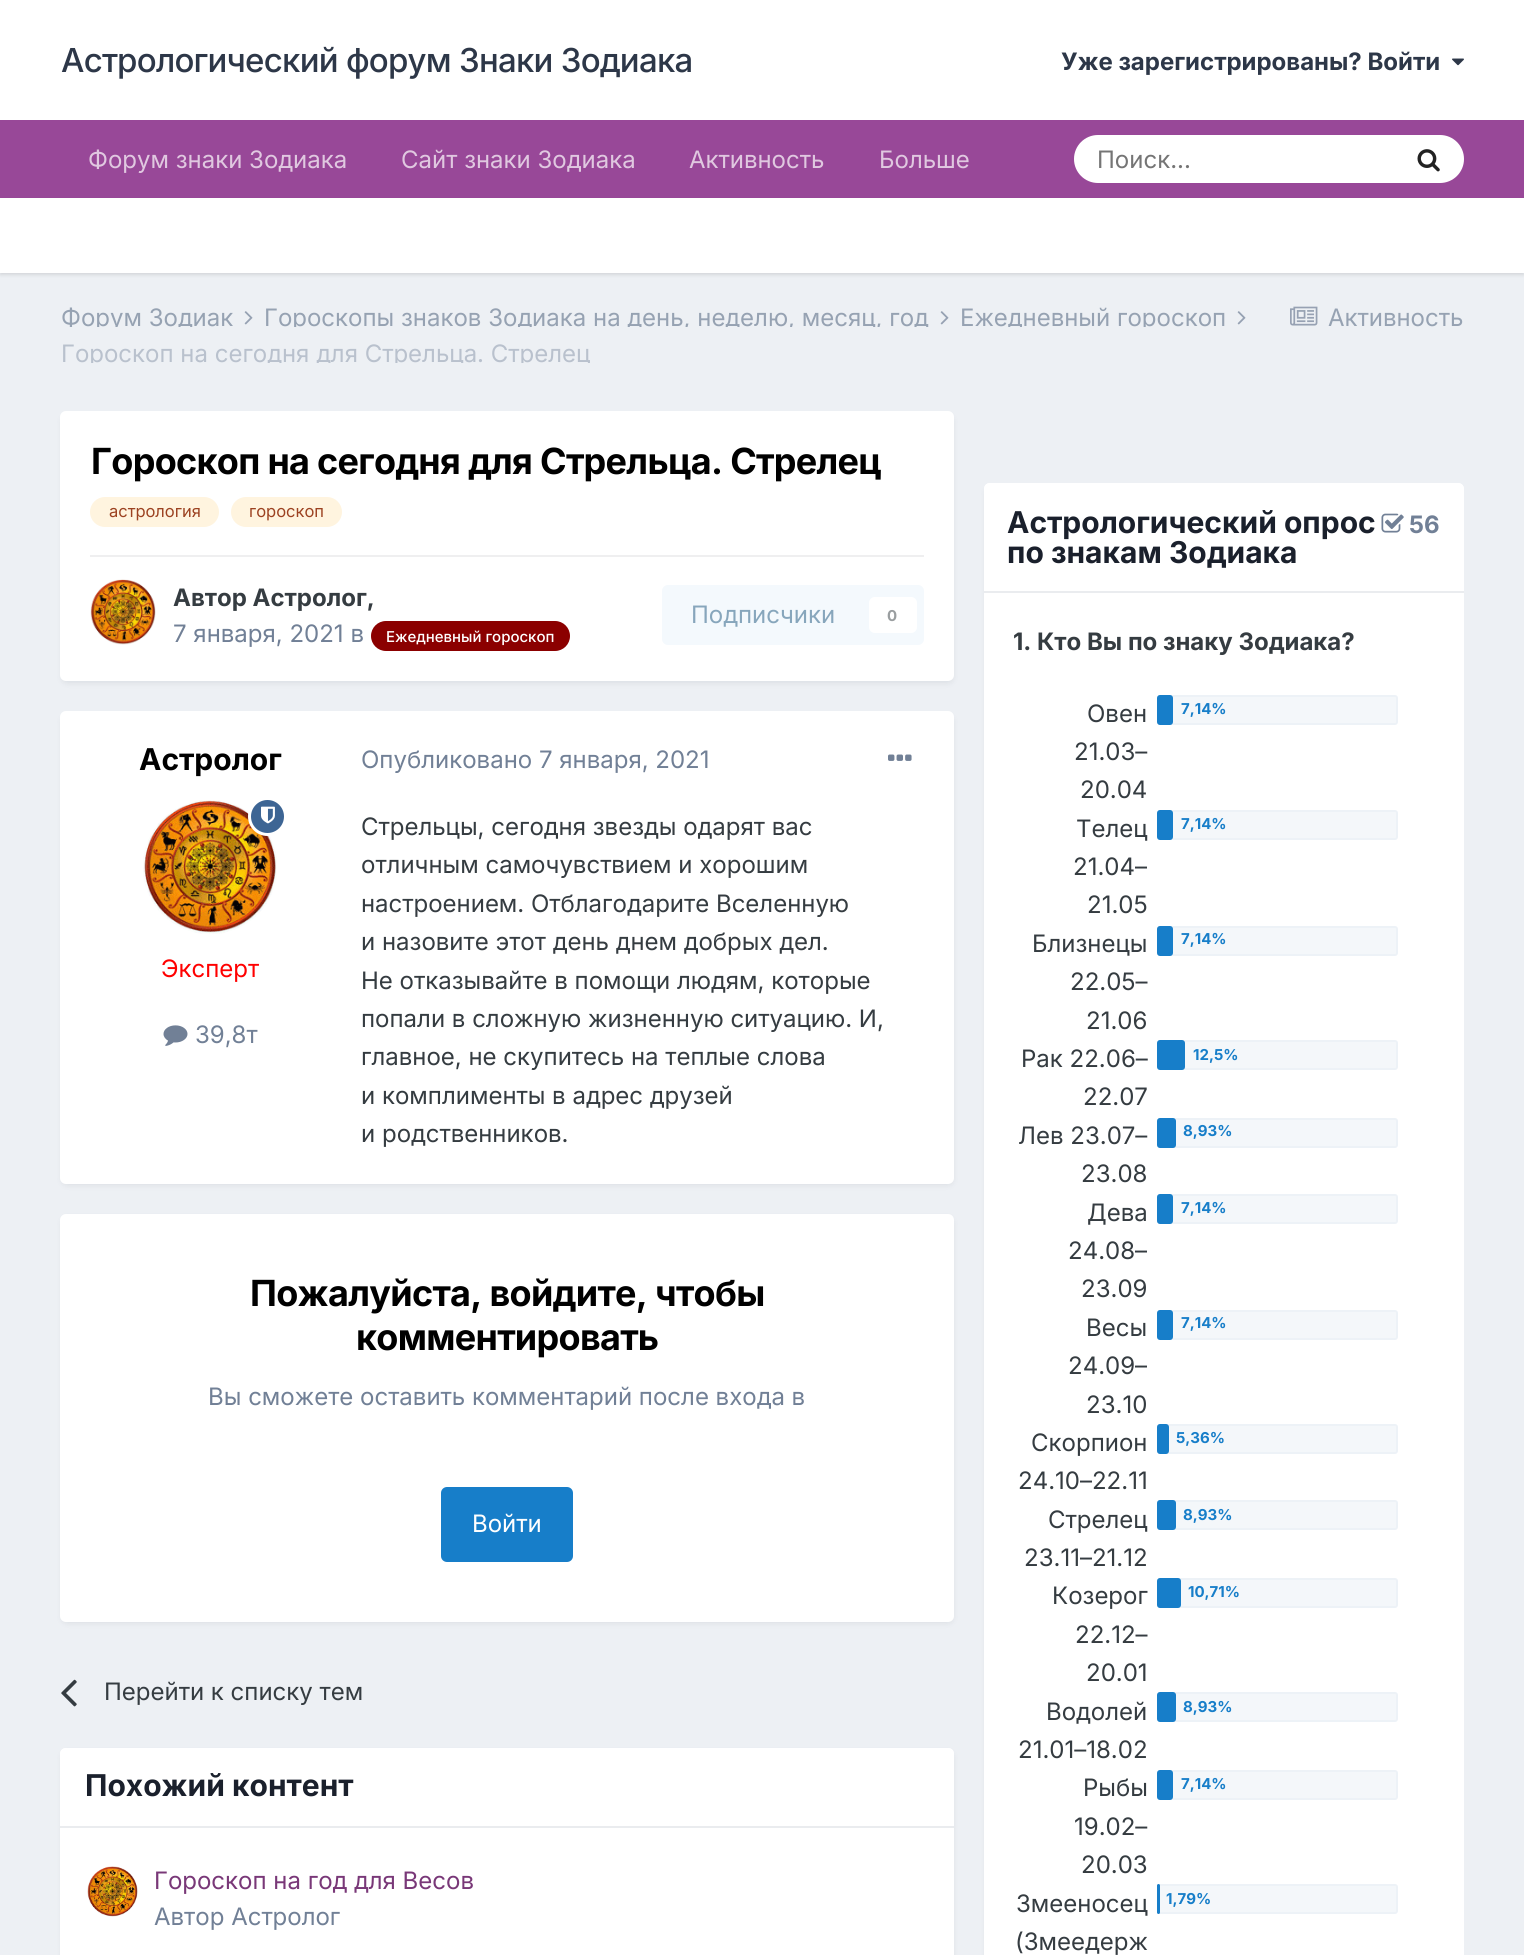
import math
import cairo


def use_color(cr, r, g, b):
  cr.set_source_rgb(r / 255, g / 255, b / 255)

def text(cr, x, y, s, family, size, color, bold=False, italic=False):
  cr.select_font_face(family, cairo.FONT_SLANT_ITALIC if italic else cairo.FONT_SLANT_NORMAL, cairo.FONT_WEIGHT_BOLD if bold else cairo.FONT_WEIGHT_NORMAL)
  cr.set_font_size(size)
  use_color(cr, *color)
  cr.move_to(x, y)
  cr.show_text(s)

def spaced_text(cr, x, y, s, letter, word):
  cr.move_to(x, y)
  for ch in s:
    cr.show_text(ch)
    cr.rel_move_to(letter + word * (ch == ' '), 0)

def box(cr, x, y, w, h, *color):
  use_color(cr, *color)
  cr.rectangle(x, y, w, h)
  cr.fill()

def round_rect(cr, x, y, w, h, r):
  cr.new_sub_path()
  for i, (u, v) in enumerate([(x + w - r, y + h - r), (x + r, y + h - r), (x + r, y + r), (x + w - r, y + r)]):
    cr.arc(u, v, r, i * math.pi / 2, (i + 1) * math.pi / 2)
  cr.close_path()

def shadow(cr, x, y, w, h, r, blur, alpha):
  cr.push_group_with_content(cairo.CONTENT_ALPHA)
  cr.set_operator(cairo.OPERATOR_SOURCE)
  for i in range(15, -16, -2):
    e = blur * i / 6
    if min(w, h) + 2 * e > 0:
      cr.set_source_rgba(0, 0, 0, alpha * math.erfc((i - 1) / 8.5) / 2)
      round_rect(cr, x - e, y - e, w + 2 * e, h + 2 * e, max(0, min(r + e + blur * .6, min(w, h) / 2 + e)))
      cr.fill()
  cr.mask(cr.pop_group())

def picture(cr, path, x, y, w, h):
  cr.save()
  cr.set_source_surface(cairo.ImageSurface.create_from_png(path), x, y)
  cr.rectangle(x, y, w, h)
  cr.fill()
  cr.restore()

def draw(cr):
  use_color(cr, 237, 240, 244)
  cr.paint()
  box(cr, 0, 0, 1524, 120, 255, 255, 255)
  picture(cr, "img_01.png", 1452, 58, 12, 8)
  box(cr, 0, 120, 1524, 78, 152, 72, 152)
  use_color(cr, 255, 255, 255)
  round_rect(cr, 1074, 135, 390, 48, 24)
  cr.fill()
  picture(cr, "img_02.png", 1417, 149, 23, 23)
  use_color(cr, 0, 0, 0)
  shadow(cr, 0, 200, 1524, 75, 0, 1.5, 0.1)
  box(cr, 0, 198, 1524, 75, 255, 255, 255)
  picture(cr, "img_03.png", 244, 311, 9, 14)
  picture(cr, "img_03.png", 940, 311, 9, 14)
  picture(cr, "img_03.png", 1237, 311, 9, 14)
  picture(cr, "img_04.png", 1290, 306, 28, 20)
  use_color(cr, 45, 55, 72)
  shadow(cr, 62, 416, 891, 267, 5, 3, 0.1)
  use_color(cr, 255, 255, 255)
  round_rect(cr, 60, 411, 894, 270, 6)
  cr.fill()
  use_color(cr, 255, 244, 223)
  round_rect(cr, 90, 497, 129, 30, 15)
  cr.fill()
  round_rect(cr, 231, 497, 111, 30, 15)
  cr.fill()
  box(cr, 90, 555, 834, 2, 239, 239, 240)
  picture(cr, "img_05.png", 90, 579, 66, 66)
  use_color(cr, 139, 0, 0)
  round_rect(cr, 371, 621, 199, 30, 15)
  cr.fill()
  use_color(cr, 244, 249, 253)
  round_rect(cr, 662, 585, 262, 60, 6)
  cr.fill()
  use_color(cr, 255, 255, 255)
  round_rect(cr, 869, 597, 48, 36, 6)
  cr.fill()
  use_color(cr, 45, 55, 72)
  shadow(cr, 62, 716, 891, 469, 5, 3, 0.1)
  use_color(cr, 255, 255, 255)
  round_rect(cr, 60, 711, 894, 473, 6)
  cr.fill()
  picture(cr, "img_07.png", 143, 800, 134, 134)
  use_color(cr, 61, 101, 148)
  cr.arc(267.5, 816.5, 18, 0, 2 * math.pi)
  cr.fill_preserve()
  use_color(cr, 255, 255, 255)
  cr.set_line_width(3)
  cr.stroke()
  picture(cr, "img_06.png", 261, 806, 14, 18)
  picture(cr, "img_08.png", 163, 1025, 25, 21)
  picture(cr, "img_09.png", 888, 754, 24, 7)
  use_color(cr, 45, 55, 72)
  shadow(cr, 62, 1218, 891, 405, 5, 3, 0.1)
  use_color(cr, 255, 255, 255)
  round_rect(cr, 60, 1214, 894, 408, 6)
  cr.fill()
  use_color(cr, 23, 126, 201)
  round_rect(cr, 441, 1487, 132, 75, 6)
  cr.fill()
  picture(cr, "img_10.png", 61, 1679, 16, 28)
  use_color(cr, 45, 55, 72)
  shadow(cr, 62, 1752, 891, 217, 5, 3, 0.1)
  use_color(cr, 255, 255, 255)
  round_rect(cr, 60, 1748, 894, 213, 6)
  cr.fill()
  cr.new_path()
  cr.move_to(66, 1748)
  cr.line_to(948, 1748)
  cr.curve_to(951.5, 1748, 954, 1750.5, 954, 1754)
  cr.line_to(954, 1827)
  cr.line_to(60, 1827)
  cr.line_to(60, 1754)
  cr.curve_to(60, 1750.5, 62.5, 1748, 66, 1748)
  cr.close_path()
  cr.fill()
  box(cr, 60, 1826, 894, 2, 234, 236, 239)
  picture(cr, "img_11.png", 87, 1866, 51, 51)
  cr.save()
  cr.rectangle(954, 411, 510, 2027)
  cr.clip()
  use_color(cr, 45, 55, 72)
  shadow(cr, 986, 488, 477, 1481, 5, 3, 0.1)
  cr.restore()
  use_color(cr, 255, 255, 255)
  round_rect(cr, 984, 483, 480, 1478, 6)
  cr.fill()
  cr.new_path()
  cr.move_to(990, 483)
  cr.line_to(1458, 483)
  cr.curve_to(1461.5, 483, 1464, 485.5, 1464, 489)
  cr.line_to(1464, 593)
  cr.line_to(984, 593)
  cr.line_to(984, 489)
  cr.curve_to(984, 485.5, 986.5, 483, 990, 483)
  cr.close_path()
  cr.fill()
  box(cr, 984, 591, 480, 2, 234, 236, 239)
  picture(cr, "img_12.png", 1381, 513, 23, 20)
  use_color(cr, 244, 247, 250)
  round_rect(cr, 1158, 696, 239, 28, 2)
  cr.fill_preserve()
  use_color(cr, 237, 242, 247)
  cr.set_line_width(2)
  cr.stroke()
  use_color(cr, 23, 126, 201)
  round_rect(cr, 1157, 695, 16, 30, 3)
  cr.fill()
  use_color(cr, 244, 247, 250)
  round_rect(cr, 1158, 811, 239, 28, 2)
  cr.fill_preserve()
  use_color(cr, 237, 242, 247)
  cr.stroke()
  use_color(cr, 23, 126, 201)
  round_rect(cr, 1157, 810, 16, 30, 3)
  cr.fill()
  use_color(cr, 244, 247, 250)
  round_rect(cr, 1158, 927, 239, 28, 2)
  cr.fill_preserve()
  use_color(cr, 237, 242, 247)
  cr.stroke()
  use_color(cr, 23, 126, 201)
  round_rect(cr, 1157, 926, 16, 30, 3)
  cr.fill()
  use_color(cr, 244, 247, 250)
  round_rect(cr, 1158, 1041, 239, 28, 2)
  cr.fill_preserve()
  use_color(cr, 237, 242, 247)
  cr.stroke()
  use_color(cr, 23, 126, 201)
  round_rect(cr, 1157, 1040, 28, 30, 3)
  cr.fill()
  use_color(cr, 244, 247, 250)
  round_rect(cr, 1158, 1119, 239, 28, 2)
  cr.fill_preserve()
  use_color(cr, 237, 242, 247)
  cr.stroke()
  use_color(cr, 23, 126, 201)
  round_rect(cr, 1157, 1118, 19, 30, 3)
  cr.fill()
  use_color(cr, 244, 247, 250)
  round_rect(cr, 1158, 1195, 239, 28, 2)
  cr.fill_preserve()
  use_color(cr, 237, 242, 247)
  cr.stroke()
  use_color(cr, 23, 126, 201)
  round_rect(cr, 1157, 1194, 16, 30, 3)
  cr.fill()
  use_color(cr, 244, 247, 250)
  round_rect(cr, 1158, 1311, 239, 28, 2)
  cr.fill_preserve()
  use_color(cr, 237, 242, 247)
  cr.stroke()
  use_color(cr, 23, 126, 201)
  round_rect(cr, 1157, 1310, 16, 30, 3)
  cr.fill()
  use_color(cr, 244, 247, 250)
  round_rect(cr, 1158, 1425, 239, 28, 2)
  cr.fill_preserve()
  use_color(cr, 237, 242, 247)
  cr.stroke()
  use_color(cr, 23, 126, 201)
  round_rect(cr, 1157, 1424, 12, 30, 3)
  cr.fill()
  use_color(cr, 244, 247, 250)
  round_rect(cr, 1158, 1501, 239, 28, 2)
  cr.fill_preserve()
  use_color(cr, 237, 242, 247)
  cr.stroke()
  use_color(cr, 23, 126, 201)
  round_rect(cr, 1157, 1500, 19, 30, 3)
  cr.fill()
  use_color(cr, 244, 247, 250)
  round_rect(cr, 1158, 1579, 239, 28, 2)
  cr.fill_preserve()
  use_color(cr, 237, 242, 247)
  cr.stroke()
  use_color(cr, 23, 126, 201)
  round_rect(cr, 1157, 1578, 24, 30, 3)
  cr.fill()
  use_color(cr, 244, 247, 250)
  round_rect(cr, 1158, 1693, 239, 28, 2)
  cr.fill_preserve()
  use_color(cr, 237, 242, 247)
  cr.stroke()
  use_color(cr, 23, 126, 201)
  round_rect(cr, 1157, 1692, 19, 30, 3)
  cr.fill()
  use_color(cr, 244, 247, 250)
  round_rect(cr, 1158, 1771, 239, 28, 2)
  cr.fill_preserve()
  use_color(cr, 237, 242, 247)
  cr.stroke()
  use_color(cr, 23, 126, 201)
  round_rect(cr, 1157, 1770, 16, 30, 3)
  cr.fill()
  use_color(cr, 244, 247, 250)
  round_rect(cr, 1158, 1885, 239, 28, 2)
  cr.fill_preserve()
  use_color(cr, 237, 242, 247)
  cr.stroke()
  use_color(cr, 23, 126, 201)
  round_rect(cr, 1157, 1884, 3, 30, 1.5)
  cr.fill()
  cr.select_font_face("Inter Medium")
  cr.set_font_size(33)
  use_color(cr, 45, 55, 72)
  spaced_text(cr, 61, 72, "Астрологический форум Знаки Зодиака", -0.75, 0)
  text(cr, 1061, 70, "Уже зарегистрированы? Войти", "Inter", 24, (45, 55, 72), bold=True)
  text(cr, 88, 168, "Форум знаки Зодиака", "Inter", 24, (224, 200, 224))
  text(cr, 401, 168, "Сайт знаки Зодиака", "Inter", 24, (224, 200, 224))
  text(cr, 689, 168, "Активность", "Inter", 24, (224, 200, 224))
  text(cr, 879, 168, "Больше", "Inter", 24, (224, 200, 224))
  text(cr, 1097, 168, "Поиск...", "Inter", 24, (117, 117, 117))
  cr.save()
  cr.rectangle(60, 305, 197, 22)
  cr.clip()
  text(cr, 61, 326, "Форум Зодиак", "Inter", 24, (150, 162, 178))
  cr.restore()
  cr.save()
  cr.rectangle(264, 305, 689, 22)
  cr.clip()
  text(cr, 264, 326, "Гороскопы знаков Зодиака на день, неделю, месяц, год", "Inter", 24, (150, 162, 178))
  cr.restore()
  cr.save()
  cr.rectangle(960, 305, 291, 22)
  cr.clip()
  text(cr, 960, 326, "Ежедневный гороскоп", "Inter", 24, (150, 162, 178))
  cr.restore()
  cr.save()
  cr.rectangle(60, 341, 530, 22)
  cr.clip()
  text(cr, 61, 362, "Гороскоп на сегодня для Стрельца. Стрелец", "Inter", 24, (185, 193, 205))
  cr.restore()
  text(cr, 1328, 326, "Активность", "Inter", 24, (150, 162, 178))
  cr.select_font_face("Inter", cairo.FONT_SLANT_NORMAL, cairo.FONT_WEIGHT_BOLD)
  cr.set_font_size(36)
  use_color(cr, 0, 0, 0)
  spaced_text(cr, 91, 474, "Гороскоп на сегодня для Стрельца. Стрелец", -0.7, 0)
  text(cr, 109, 517, "астрология", "Inter", 16.5, (156, 66, 33))
  text(cr, 249, 517, "гороскоп", "Inter", 16.5, (156, 66, 33))
  text(cr, 173, 606, "Автор Астролог,", "Inter", 24, (53, 60, 65), bold=True)
  text(cr, 173, 642, "7 января, 2021 в", "Inter", 24, (113, 128, 150))
  text(cr, 386, 642, "Ежедневный гороскоп", "Inter Medium", 15, (255, 255, 255))
  text(cr, 691, 623, "Подписчики", "Inter", 24, (135, 166, 188))
  text(cr, 887, 621, "0", "Inter", 15, (154, 158, 160), bold=True)
  text(cr, 139, 770, "Астролог", "Inter", 30, (0, 0, 0), bold=True)
  text(cr, 161, 977, "Эксперт", "Inter", 24, (255, 0, 0))
  text(cr, 195, 1043, "39,8т", "Inter", 24, (113, 128, 150))
  text(cr, 361, 768, "Опубликовано 7 января, 2021", "Inter", 24, (113, 128, 150))
  text(cr, 361, 835, "Стрельцы, сегодня звезды одарят вас", "Inter", 24, (53, 60, 65))
  text(cr, 361, 873, "отличным самочувствием и хорошим", "Inter", 24, (53, 60, 65))
  text(cr, 361, 912, "настроением. Отблагодарите Вселенную", "Inter", 24, (53, 60, 65))
  text(cr, 361, 950, "и назовите этот день днем добрых дел.", "Inter", 24, (53, 60, 65))
  text(cr, 361, 989, "Не отказывайте в помощи людям, которые", "Inter", 24, (53, 60, 65))
  text(cr, 361, 1027, "попали в сложную жизненную ситуацию. И,", "Inter", 24, (53, 60, 65))
  text(cr, 361, 1065, "главное, не скупитесь на теплые слова", "Inter", 24, (53, 60, 65))
  text(cr, 361, 1104, "и комплименты в адрес друзей", "Inter", 24, (53, 60, 65))
  text(cr, 361, 1142, "и родственников.", "Inter", 24, (53, 60, 65))
  cr.select_font_face("Inter", cairo.FONT_SLANT_NORMAL, cairo.FONT_WEIGHT_BOLD)
  cr.set_font_size(36)
  use_color(cr, 0, 0, 0)
  spaced_text(cr, 250, 1306, "Пожалуйста, войдите, чтобы", -0.7, 0)
  spaced_text(cr, 356, 1350, "комментировать", -0.7, 0)
  text(cr, 208, 1405, "Вы сможете оставить комментарий после входа в", "Inter", 24, (113, 128, 150))
  text(cr, 472, 1532, "Войти", "Inter", 24, (255, 255, 255))
  text(cr, 104, 1700, "Перейти к списку тем", "Inter", 24, (53, 60, 65))
  text(cr, 85, 1796, "Похожий контент", "Inter", 30, (26, 32, 44), bold=True)
  text(cr, 154, 1889, "Гороскоп на год для Весов", "Inter", 24, (121, 56, 120))
  text(cr, 154, 1925, "Автор Астролог", "Inter", 24, (113, 128, 150))
  text(cr, 1007, 533, "Астрологический опрос", "Inter", 30, (26, 32, 44), bold=True)
  text(cr, 1409, 533, "56", "Inter", 24, (113, 128, 150), bold=True)
  text(cr, 1007, 563, "по знакам Зодиака", "Inter", 30, (26, 32, 44), bold=True)
  text(cr, 1013, 650, "1. Кто Вы по знаку Зодиака?", "Inter", 24, (53, 60, 65), bold=True)
  text(cr, 1087, 722, "Овен", "Inter", 24, (53, 60, 65))
  text(cr, 1074, 760, "21.03–", "Inter", 24, (53, 60, 65))
  text(cr, 1080, 798, "20.04", "Inter", 24, (53, 60, 65))
  text(cr, 1181, 714, "7,14%", "Inter", 15, (23, 126, 201), bold=True)
  text(cr, 1076, 837, "Телец", "Inter", 24, (53, 60, 65))
  text(cr, 1073, 875, "21.04–", "Inter", 24, (53, 60, 65))
  text(cr, 1087, 913, "21.05", "Inter", 24, (53, 60, 65))
  text(cr, 1181, 829, "7,14%", "Inter", 15, (23, 126, 201), bold=True)
  text(cr, 1032, 952, "Близнецы", "Inter", 24, (53, 60, 65))
  text(cr, 1070, 990, "22.05–", "Inter", 24, (53, 60, 65))
  text(cr, 1086, 1029, "21.06", "Inter", 24, (53, 60, 65))
  text(cr, 1181, 944, "7,14%", "Inter", 15, (23, 126, 201), bold=True)
  text(cr, 1021, 1067, "Рак 22.06–", "Inter", 24, (53, 60, 65))
  text(cr, 1083, 1105, "22.07", "Inter", 24, (53, 60, 65))
  text(cr, 1193, 1060, "12,5%", "Inter", 15, (23, 126, 201), bold=True)
  text(cr, 1018, 1144, "Лев 23.07–", "Inter", 24, (53, 60, 65))
  text(cr, 1081, 1182, "23.08", "Inter", 24, (53, 60, 65))
  text(cr, 1183, 1136, "8,93%", "Inter", 15, (23, 126, 201), bold=True)
  text(cr, 1087, 1221, "Дева", "Inter", 24, (53, 60, 65))
  text(cr, 1068, 1259, "24.08–", "Inter", 24, (53, 60, 65))
  text(cr, 1081, 1297, "23.09", "Inter", 24, (53, 60, 65))
  text(cr, 1181, 1213, "7,14%", "Inter", 15, (23, 126, 201), bold=True)
  text(cr, 1086, 1336, "Весы", "Inter", 24, (53, 60, 65))
  text(cr, 1068, 1374, "24.09–", "Inter", 24, (53, 60, 65))
  text(cr, 1086, 1413, "23.10", "Inter", 24, (53, 60, 65))
  text(cr, 1181, 1328, "7,14%", "Inter", 15, (23, 126, 201), bold=True)
  text(cr, 1031, 1451, "Скорпион", "Inter", 24, (53, 60, 65))
  text(cr, 1018, 1489, "24.10–22.11", "Inter", 24, (53, 60, 65))
  text(cr, 1176, 1443, "5,36%", "Inter", 15, (23, 126, 201), bold=True)
  text(cr, 1048, 1528, "Стрелец", "Inter", 24, (53, 60, 65))
  text(cr, 1024, 1566, "23.11–21.12", "Inter", 24, (53, 60, 65))
  text(cr, 1183, 1520, "8,93%", "Inter", 15, (23, 126, 201), bold=True)
  text(cr, 1052, 1604, "Козерог", "Inter", 24, (53, 60, 65))
  text(cr, 1075, 1643, "22.12–", "Inter", 24, (53, 60, 65))
  text(cr, 1086, 1681, "20.01", "Inter", 24, (53, 60, 65))
  text(cr, 1188, 1597, "10,71%", "Inter", 15, (23, 126, 201), bold=True)
  text(cr, 1046, 1720, "Водолей", "Inter", 24, (53, 60, 65))
  text(cr, 1018, 1758, "21.01–18.02", "Inter", 24, (53, 60, 65))
  text(cr, 1183, 1712, "8,93%", "Inter", 15, (23, 126, 201), bold=True)
  text(cr, 1083, 1796, "Рыбы", "Inter", 24, (53, 60, 65))
  text(cr, 1074, 1835, "19.02–", "Inter", 24, (53, 60, 65))
  text(cr, 1081, 1873, "20.03", "Inter", 24, (53, 60, 65))
  text(cr, 1181, 1789, "7,14%", "Inter", 15, (23, 126, 201), bold=True)
  text(cr, 1016, 1912, "Змееносец", "Inter", 24, (53, 60, 65))
  text(cr, 1015, 1950, "(Змеедерж", "Inter", 24, (53, 60, 65))
  text(cr, 1166, 1904, "1,79%", "Inter", 15, (23, 126, 201), bold=True)


surface = cairo.ImageSurface(cairo.FORMAT_RGB24, 1524, 1955)
cr = cairo.Context(surface)
options = cairo.FontOptions()
options.set_hint_metrics(cairo.HINT_METRICS_OFF)
options.set_hint_style(cairo.HINT_STYLE_NONE)
cr.set_font_options(options)
cr.set_miter_limit(4)
draw(cr)
surface.write_to_png("out.png")
